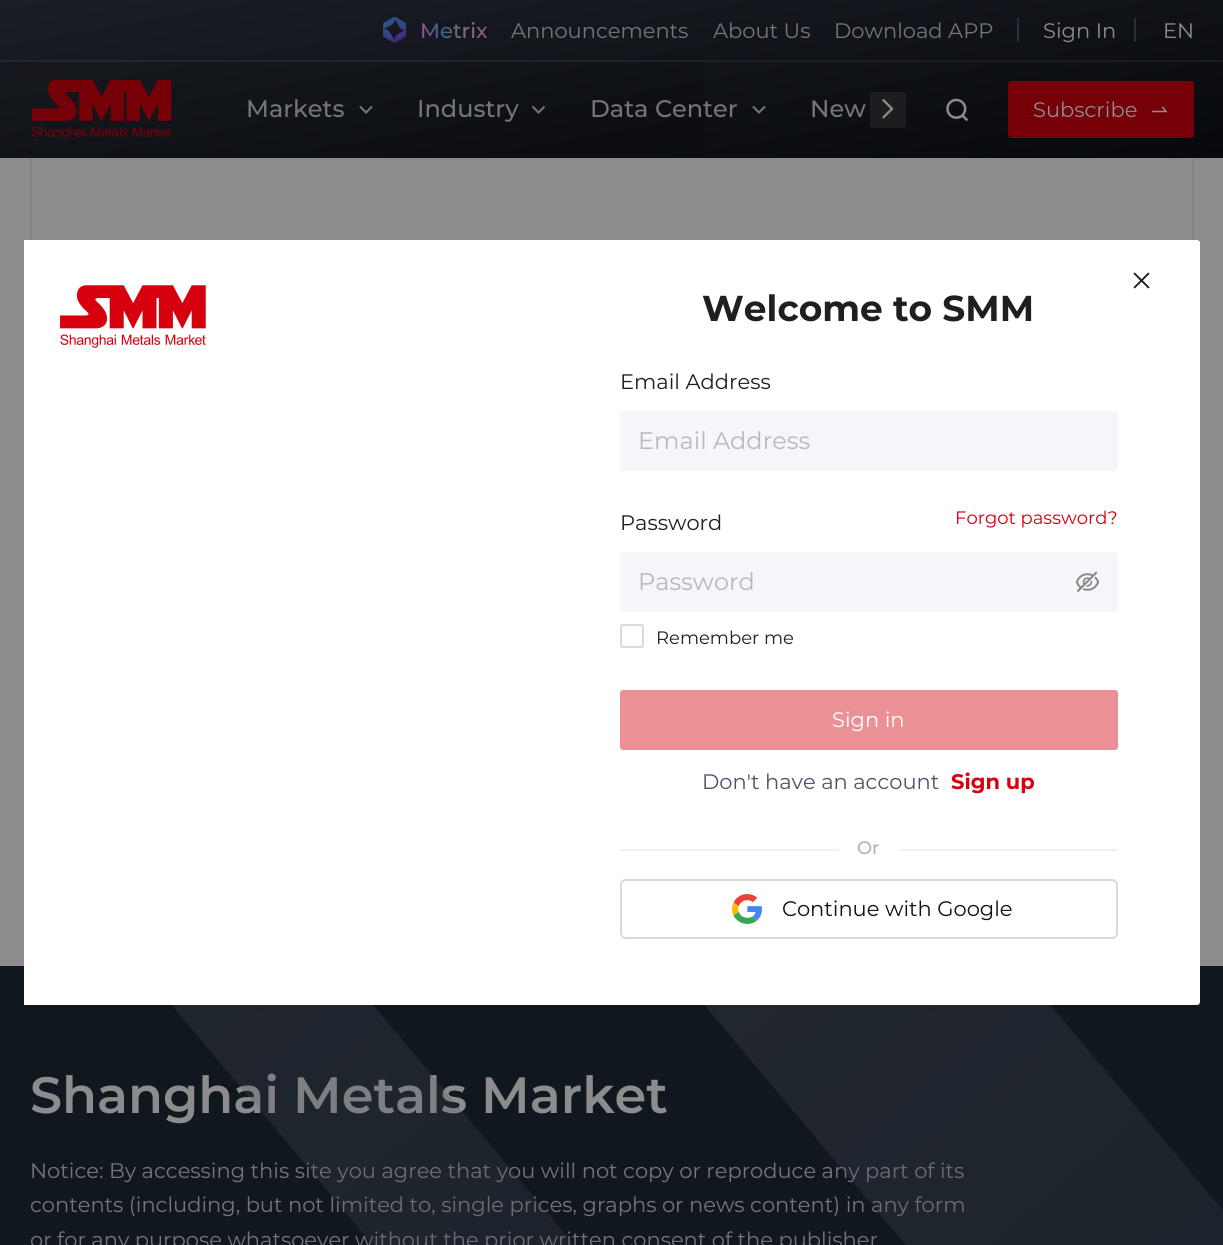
import math
import cairo


def use_color(cr, r, g, b):
  cr.set_source_rgb(r / 255, g / 255, b / 255)

def text(cr, x, y, s, family, size, color, bold=False, italic=False):
  cr.select_font_face(family, cairo.FONT_SLANT_ITALIC if italic else cairo.FONT_SLANT_NORMAL, cairo.FONT_WEIGHT_BOLD if bold else cairo.FONT_WEIGHT_NORMAL)
  cr.set_font_size(size)
  use_color(cr, *color)
  cr.move_to(x, y)
  cr.show_text(s)

def box(cr, x, y, w, h, *color):
  use_color(cr, *color)
  cr.rectangle(x, y, w, h)
  cr.fill()

def round_rect(cr, x, y, w, h, r):
  cr.new_sub_path()
  for i, (u, v) in enumerate([(x + w - r, y + h - r), (x + r, y + h - r), (x + r, y + r), (x + w - r, y + r)]):
    cr.arc(u, v, r, i * math.pi / 2, (i + 1) * math.pi / 2)
  cr.close_path()

def shadow(cr, x, y, w, h, r, blur, alpha):
  cr.push_group_with_content(cairo.CONTENT_ALPHA)
  cr.set_operator(cairo.OPERATOR_SOURCE)
  for i in range(15, -16, -2):
    e = blur * i / 6
    if min(w, h) + 2 * e > 0:
      cr.set_source_rgba(0, 0, 0, alpha * math.erfc((i - 1) / 8.5) / 2)
      round_rect(cr, x - e, y - e, w + 2 * e, h + 2 * e, max(0, min(r + e + blur * .6, min(w, h) / 2 + e)))
      cr.fill()
  cr.mask(cr.pop_group())

def picture(cr, path, x, y, w, h):
  cr.save()
  cr.set_source_surface(cairo.ImageSurface.create_from_png(path), x, y)
  cr.rectangle(x, y, w, h)
  cr.fill()
  cr.restore()

def draw(cr):
  use_color(cr, 140, 140, 140)
  cr.paint()
  cr.rectangle(31, 130, 1162, 715)
  use_color(cr, 130, 130, 130)
  cr.stroke()
  gradient = cairo.LinearGradient(644, 260, 580, -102)
  gradient.add_color_stop_rgba(0, 0.027, 0.035, 0.055, 1)
  gradient.add_color_stop_rgba(1, 0.106, 0.118, 0.145, 1)
  cr.set_source(gradient)
  cr.rectangle(0, 0, 1223, 158)
  cr.fill()
  cr.set_source_rgba(0.549, 0.549, 0.549, 0.1)
  cr.rectangle(0, 60, 1223, 2)
  cr.fill()
  picture(cr, "img_01.png", 383, 17, 24, 26)
  box(cr, 1017, 18, 2, 24, 41, 47, 54)
  box(cr, 1134, 18, 2, 24, 41, 47, 54)
  cr.set_source_rgba(0, 0, 0, 0.1)
  cr.rectangle(0, 62, 705, 96)
  cr.fill()
  picture(cr, "img_02.png", 32, 80, 140, 60)
  picture(cr, "img_03.png", 359, 105, 14, 9)
  picture(cr, "img_04.png", 531, 105, 15, 9)
  picture(cr, "img_05.png", 752, 105, 14, 9)
  use_color(cr, 29, 29, 29)
  round_rect(cr, 870, 92, 36, 36, 3)
  cr.fill()
  picture(cr, "img_06.png", 882, 99, 12, 20)
  picture(cr, "img_07.png", 946, 98, 23, 24)
  use_color(cr, 118, 0, 8)
  round_rect(cr, 1008, 81, 186, 57, 3)
  cr.fill()
  picture(cr, "img_08.png", 1151, 106, 16, 7)
  box(cr, 0, 966, 1223, 279, 17, 23, 30)
  cr.select_font_face("Montserrat Medium")
  cr.set_font_size(21)
  gradient = cairo.LinearGradient(420, 30, 487, 30)
  gradient.add_color_stop_rgba(0, 0.549, 0.341, 0.545, 1)
  gradient.add_color_stop_rgba(0.33, 0.22, 0.38, 0.549, 1)
  gradient.add_color_stop_rgba(0.67, 0.522, 0.435, 0.435, 1)
  gradient.add_color_stop_rgba(1, 0.549, 0.341, 0.545, 1)
  cr.set_source(gradient)
  cr.move_to(420, 38)
  cr.show_text("Metrix")
  text(cr, 511, 38, "Announcements", "Montserrat", 21, (115, 117, 120))
  text(cr, 713, 38, "About Us", "Montserrat", 21, (115, 117, 120))
  text(cr, 834, 38, "Download APP", "Montserrat", 21, (115, 117, 120))
  text(cr, 1043, 38, "Sign In", "Montserrat", 21, (140, 140, 140))
  text(cr, 1163, 38, "EN", "Montserrat", 21, (140, 140, 140))
  text(cr, 246, 117, "Markets", "Montserrat Medium", 24, (115, 117, 120))
  text(cr, 417, 117, "Industry", "Montserrat Medium", 24, (115, 117, 120))
  text(cr, 590, 117, "Data Center", "Montserrat Medium", 24, (115, 117, 120))
  text(cr, 810, 117, "New", "Montserrat Medium", 24, (115, 117, 120))
  text(cr, 1033, 117, "Subscribe", "Montserrat", 21, (140, 140, 140))
  text(cr, 30, 1113, "Shanghai Metals Market", "Montserrat SemiBold", 51, (140, 140, 140))
  text(cr, 30, 1178, "Notice: By accessing this site you agree that you will not copy or reproduce any part of its", "Montserrat", 21, (115, 117, 120))
  text(cr, 30, 1212, "contents (including, but not limited to, single prices, graphs or news content) in any form", "Montserrat", 21, (115, 117, 120))
  text(cr, 30, 1247, "or for any purpose whatsoever without the prior written consent of the publisher", "Montserrat", 21, (115, 117, 120))
  cr.save()
  cr.rectangle(0, 966, 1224, 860)
  cr.clip()
  gradient = cairo.LinearGradient(4.4, 686, 630, 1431)
  gradient.add_color_stop_rgba(0, 0.298, 0.322, 0.369, 0.3)
  gradient.add_color_stop_rgba(1, 0.298, 0.322, 0.369, 0.18)
  cr.set_source(gradient)
  cr.new_path()
  cr.move_to(64, 636)
  cr.line_to(689, 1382)
  cr.line_to(571, 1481)
  cr.line_to(-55, 735)
  cr.close_path()
  cr.fill()
  cr.restore()
  gradient = cairo.LinearGradient(611, 687, 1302, 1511)
  gradient.add_color_stop_rgba(0, 0.298, 0.322, 0.369, 0.3)
  gradient.add_color_stop_rgba(1, 0.298, 0.322, 0.369, 0.18)
  cr.set_source(gradient)
  cr.new_path()
  cr.move_to(712, 602)
  cr.line_to(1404, 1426)
  cr.line_to(1200, 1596)
  cr.line_to(509, 772)
  cr.close_path()
  cr.fill()
  use_color(cr, 0, 0, 0)
  shadow(cr, 30, 251, 1164, 753, 0, 4.5, 0.12)
  use_color(cr, 255, 255, 255)
  round_rect(cr, 24, 240, 1176, 765, 3)
  cr.fill()
  box(cr, 24, 240, 3, 765, 255, 255, 255)
  picture(cr, "img_09.png", 1133, 272, 17, 17)
  picture(cr, "img_10.png", 60, 285, 146, 63)
  text(cr, 702, 321, "Welcome to SMM", "Montserrat", 36, (31, 31, 31), bold=True)
  text(cr, 620, 389, "Email Address", "Montserrat", 21, (31, 31, 31))
  use_color(cr, 245, 246, 249)
  round_rect(cr, 620, 411, 498, 60, 3)
  cr.fill()
  text(cr, 638, 449, "Email Address", "Montserrat", 24, (184, 185, 187))
  text(cr, 620, 530, "Password", "Montserrat", 21, (31, 31, 31))
  use_color(cr, 245, 246, 249)
  round_rect(cr, 620, 552, 498, 60, 3)
  cr.fill()
  text(cr, 638, 590, "Password", "Montserrat", 24, (184, 185, 187))
  picture(cr, "img_11.png", 1076, 571, 24, 21)
  text(cr, 955, 524, "Forgot password?", "Montserrat", 18, (215, 0, 15))
  round_rect(cr, 621, 625, 22, 22, 2)
  use_color(cr, 217, 217, 217)
  cr.stroke()
  text(cr, 656, 644, "Remember me", "Montserrat", 18, (31, 31, 31))
  use_color(cr, 235, 145, 150)
  round_rect(cr, 621, 691, 496, 58, 2)
  cr.fill_preserve()
  cr.stroke()
  text(cr, 832, 727, "Sign in", "Montserrat", 21, (255, 255, 255))
  text(cr, 702, 789, "Don't have an account", "Montserrat", 21, (75, 84, 104))
  text(cr, 951, 789, "Sign up", "Montserrat", 21, (215, 0, 15), bold=True)
  box(cr, 620, 849, 219, 2, 240, 240, 240)
  text(cr, 857, 854, "Or", "Montserrat Medium", 18, (176, 179, 186))
  box(cr, 899, 849, 219, 2, 240, 240, 240)
  round_rect(cr, 621, 880, 496, 58, 5)
  use_color(cr, 216, 217, 218)
  cr.stroke()
  picture(cr, "img_12.png", 732, 894, 30, 30)
  text(cr, 782, 916, "Continue with Google", "Montserrat", 21, (12, 16, 25))


surface = cairo.ImageSurface(cairo.FORMAT_RGB24, 1223, 1245)
cr = cairo.Context(surface)
options = cairo.FontOptions()
options.set_hint_metrics(cairo.HINT_METRICS_OFF)
options.set_hint_style(cairo.HINT_STYLE_NONE)
cr.set_font_options(options)
cr.set_miter_limit(4)
draw(cr)
surface.write_to_png("out.png")
